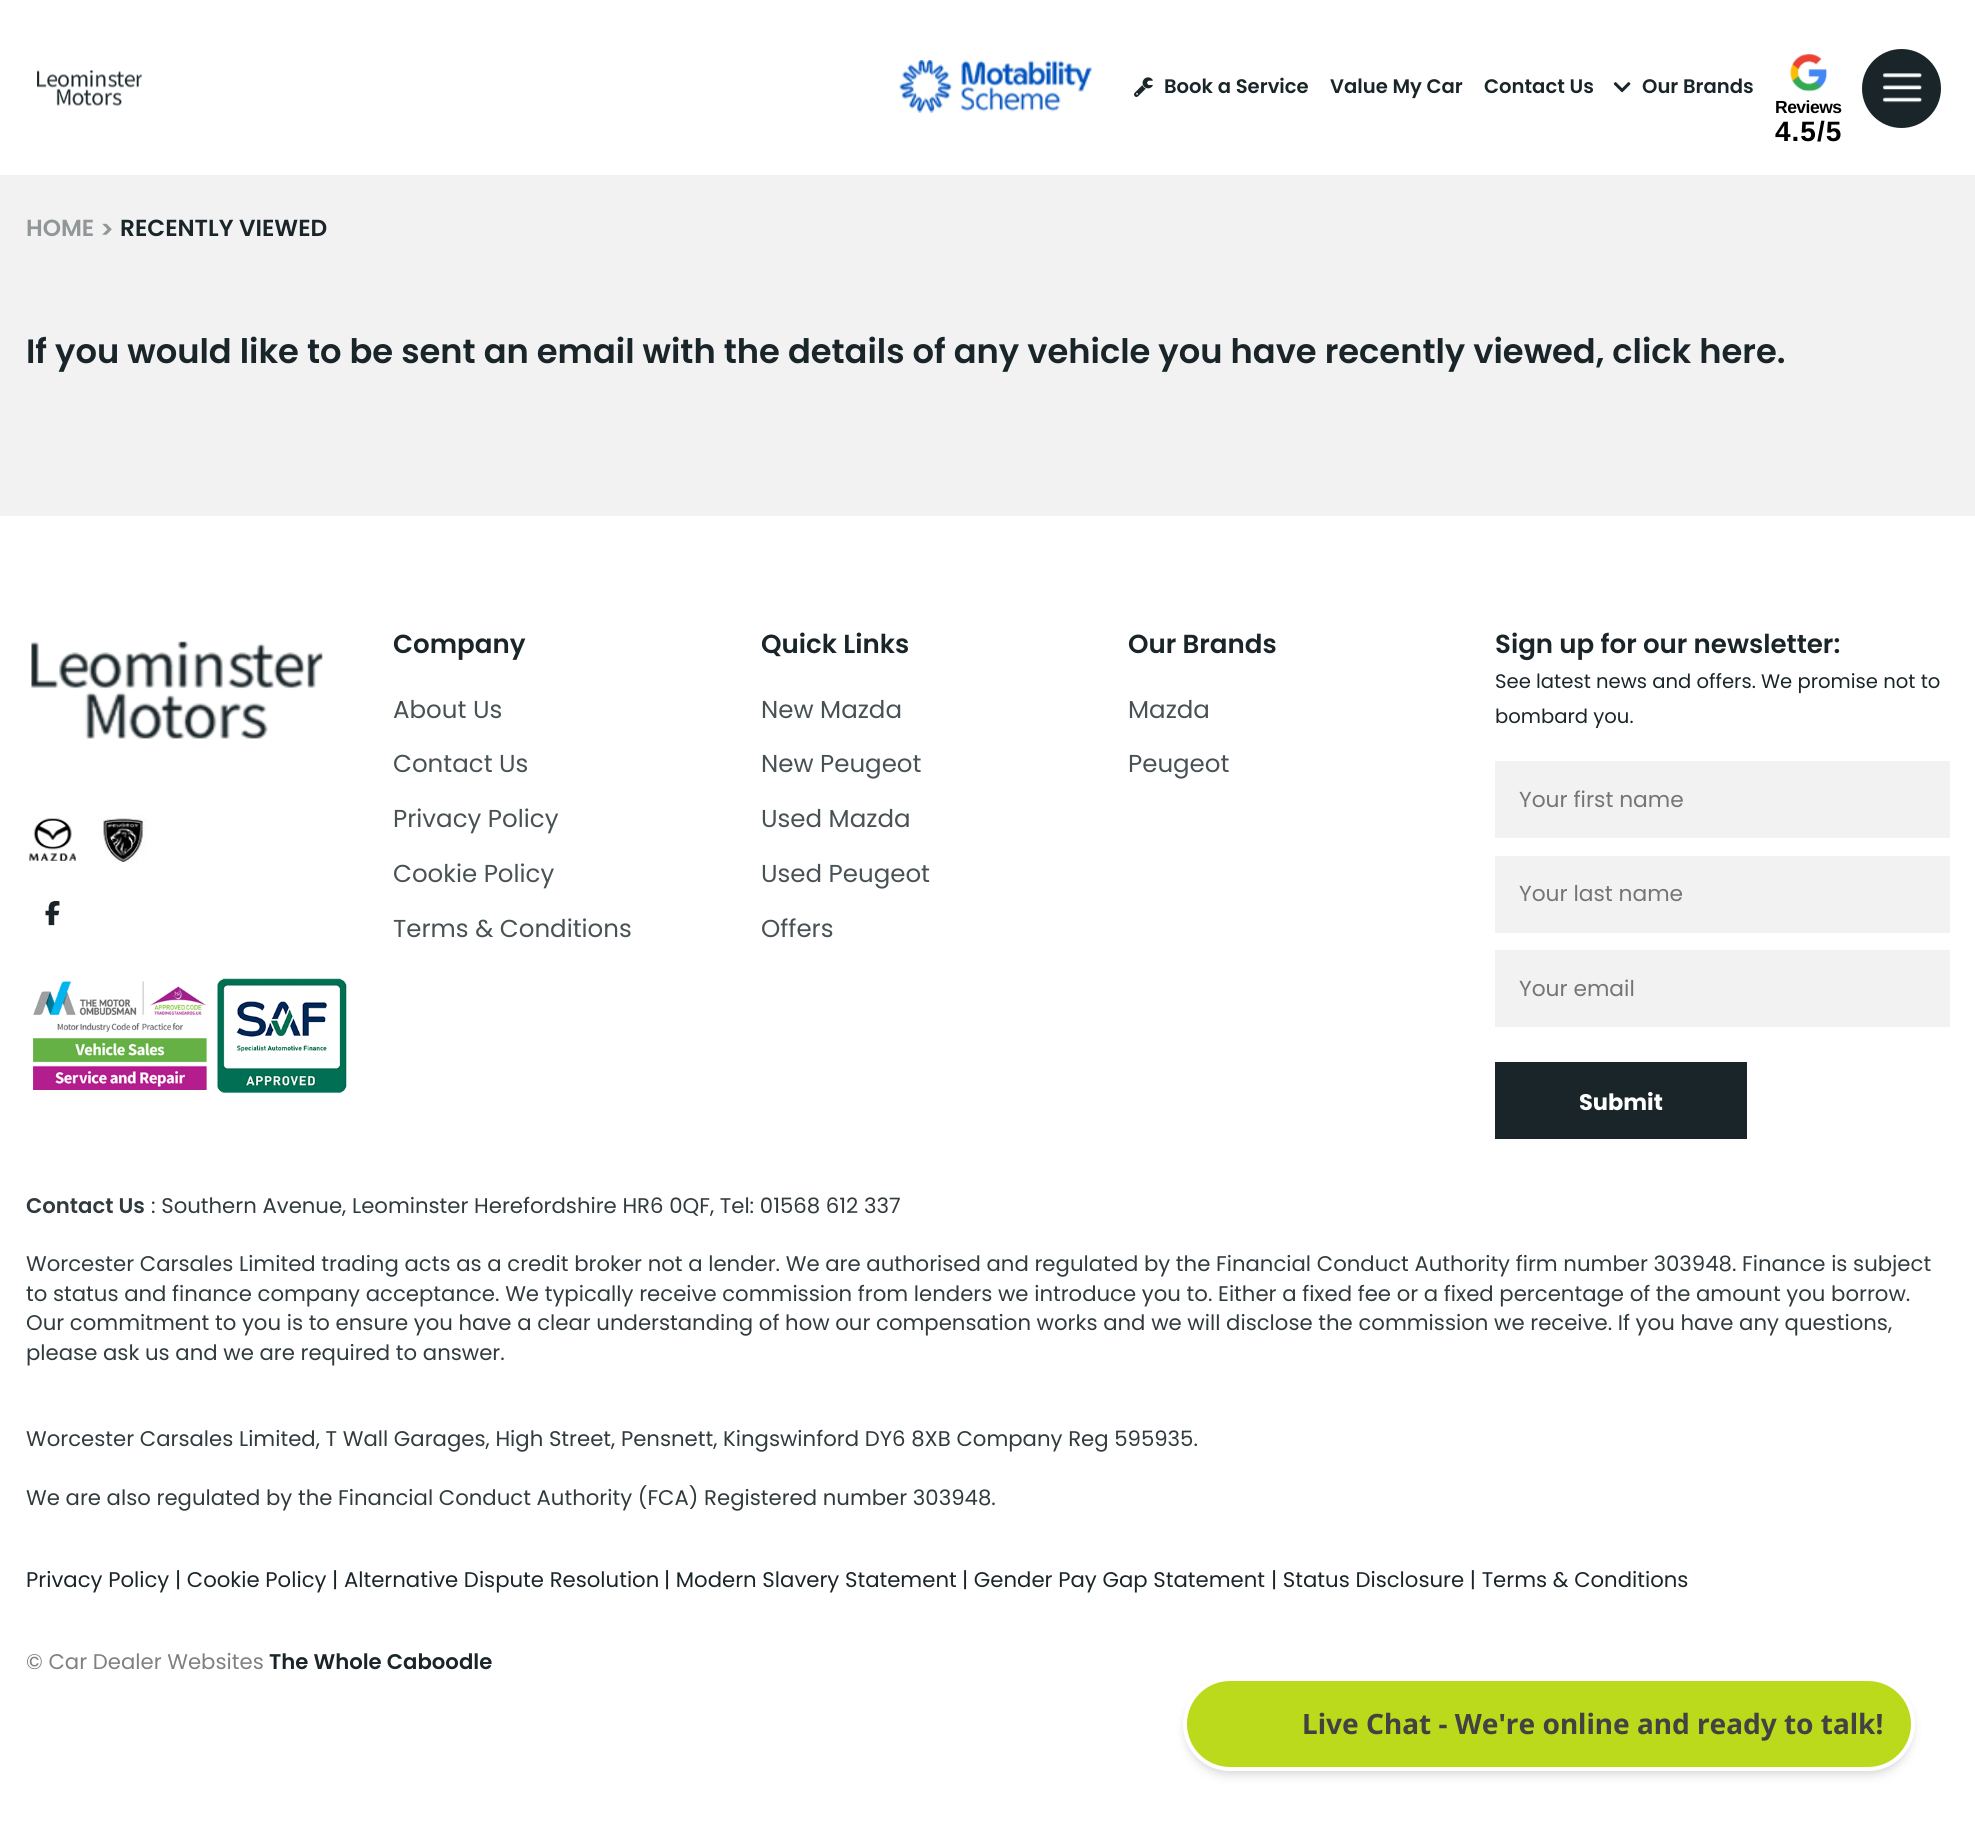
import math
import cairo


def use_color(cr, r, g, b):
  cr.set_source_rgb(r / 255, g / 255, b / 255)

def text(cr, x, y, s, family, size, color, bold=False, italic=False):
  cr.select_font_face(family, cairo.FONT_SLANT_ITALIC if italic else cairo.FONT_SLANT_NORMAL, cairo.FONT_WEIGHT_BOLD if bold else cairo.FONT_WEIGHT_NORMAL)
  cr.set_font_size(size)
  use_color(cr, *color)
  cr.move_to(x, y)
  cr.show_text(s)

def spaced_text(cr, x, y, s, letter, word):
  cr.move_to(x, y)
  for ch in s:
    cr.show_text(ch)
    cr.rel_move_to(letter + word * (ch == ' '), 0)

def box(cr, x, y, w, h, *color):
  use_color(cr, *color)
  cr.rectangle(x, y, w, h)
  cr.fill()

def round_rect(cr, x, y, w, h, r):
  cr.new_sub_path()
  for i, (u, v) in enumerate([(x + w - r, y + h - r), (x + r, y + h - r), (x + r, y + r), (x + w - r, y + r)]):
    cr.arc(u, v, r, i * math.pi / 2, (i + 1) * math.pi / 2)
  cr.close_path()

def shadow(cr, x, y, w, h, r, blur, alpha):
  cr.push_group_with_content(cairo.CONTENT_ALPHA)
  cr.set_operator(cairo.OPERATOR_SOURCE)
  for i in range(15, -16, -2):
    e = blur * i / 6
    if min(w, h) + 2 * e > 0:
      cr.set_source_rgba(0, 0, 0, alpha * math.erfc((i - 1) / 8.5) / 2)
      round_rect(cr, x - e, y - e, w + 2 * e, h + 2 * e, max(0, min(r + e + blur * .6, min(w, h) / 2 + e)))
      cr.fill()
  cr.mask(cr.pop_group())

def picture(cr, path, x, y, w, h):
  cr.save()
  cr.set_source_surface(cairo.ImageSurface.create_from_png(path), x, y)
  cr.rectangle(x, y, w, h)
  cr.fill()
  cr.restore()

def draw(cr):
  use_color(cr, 242, 242, 242)
  cr.paint()
  box(cr, 0, 0, 1975, 175, 255, 255, 255)
  picture(cr, "img_01.png", 37, 70, 105, 36)
  picture(cr, "img_02.png", 899, 60, 193, 53)
  picture(cr, "img_03.png", 1134, 77, 19, 20)
  picture(cr, "img_04.png", 1613, 82, 18, 11)
  use_color(cr, 26, 37, 41)
  cr.arc(1901.5, 88.5, 39.5, 0, 2 * math.pi)
  cr.fill()
  picture(cr, "img_05.png", 1882, 73, 40, 30)
  picture(cr, "img_06.png", 1790, 54, 38, 38)
  box(cr, 0, 516, 1975, 1310, 255, 255, 255)
  picture(cr, "img_07.png", 31, 641, 292, 98)
  picture(cr, "img_08.png", 29, 818, 47, 43)
  picture(cr, "img_09.png", 98, 815, 49, 49)
  picture(cr, "img_10.png", 45, 901, 15, 25)
  picture(cr, "img_11.png", 33, 981, 174, 109)
  picture(cr, "img_12.png", 217, 978, 130, 115)
  box(cr, 1495, 761, 455, 77, 242, 242, 242)
  box(cr, 1495, 856, 455, 77, 242, 242, 242)
  box(cr, 1495, 950, 455, 77, 242, 242, 242)
  box(cr, 1495, 1062, 252, 77, 26, 37, 41)
  use_color(cr, 0, 0, 0)
  shadow(cr, 1185, 1682, 728, 91, 45.5, 3.5, 0.06)
  shadow(cr, 1185, 1685, 728, 91, 45.5, 5, 0.1)
  use_color(cr, 186, 218, 27)
  round_rect(cr, 1185, 1679, 728, 90, 45)
  cr.fill_preserve()
  use_color(cr, 255, 255, 255)
  cr.set_line_width(4)
  cr.stroke()
  text(cr, 1164, 93, "Book a Service", "Poppins SemiBold", 19.6, (26, 37, 41))
  text(cr, 1330, 93, "Value My Car", "Poppins SemiBold", 19.6, (26, 37, 41))
  text(cr, 1484, 93, "Contact Us", "Poppins SemiBold", 19.6, (26, 37, 41))
  text(cr, 1642, 93, "Our Brands", "Poppins SemiBold", 19.6, (26, 37, 41))
  cr.select_font_face("Liberation Sans", cairo.FONT_SLANT_NORMAL, cairo.FONT_WEIGHT_BOLD)
  cr.set_font_size(17.5)
  use_color(cr, 0, 0, 0)
  spaced_text(cr, 1775, 113, "Reviews", -0.5, 0)
  cr.set_font_size(28)
  spaced_text(cr, 1775, 141, "4.5/5", 1, 0)
  text(cr, 26, 236, "HOME", "Poppins SemiBold", 23.25, (145, 150, 152))
  text(cr, 100, 238, ">", "Poppins SemiBold", 24.5, (145, 150, 152))
  text(cr, 120, 236, "RECENTLY VIEWED", "Poppins SemiBold", 23.25, (26, 37, 41))
  text(cr, 26, 363, "If you would like to be sent an email with the details of any vehicle you have recently viewed, click here.", "Poppins SemiBold", 33.7, (26, 37, 41))
  text(cr, 393, 653, "Company", "Poppins SemiBold", 26.1, (26, 37, 41))
  text(cr, 393, 718, "About Us", "Poppins", 24.5, (72, 81, 84))
  text(cr, 393, 772, "Contact Us", "Poppins", 24.5, (72, 81, 84))
  text(cr, 393, 827, "Privacy Policy", "Poppins", 24.5, (72, 81, 84))
  text(cr, 393, 882, "Cookie Policy", "Poppins", 24.5, (72, 81, 84))
  text(cr, 393, 937, "Terms & Conditions", "Poppins", 24.5, (72, 81, 84))
  text(cr, 761, 653, "Quick Links", "Poppins SemiBold", 26.1, (26, 37, 41))
  text(cr, 761, 718, "New Mazda", "Poppins", 24.5, (72, 81, 84))
  text(cr, 761, 772, "New Peugeot", "Poppins", 24.5, (72, 81, 84))
  text(cr, 761, 827, "Used Mazda", "Poppins", 24.5, (72, 81, 84))
  text(cr, 761, 882, "Used Peugeot", "Poppins", 24.5, (72, 81, 84))
  text(cr, 761, 937, "Offers", "Poppins", 24.5, (72, 81, 84))
  text(cr, 1128, 653, "Our Brands", "Poppins SemiBold", 26.1, (26, 37, 41))
  text(cr, 1128, 718, "Mazda", "Poppins", 24.5, (72, 81, 84))
  text(cr, 1128, 772, "Peugeot", "Poppins", 24.5, (72, 81, 84))
  text(cr, 1495, 653, "Sign up for our newsletter:", "Poppins SemiBold", 26.1, (26, 37, 41))
  text(cr, 1495, 688, "See latest news and offers. We promise not to", "Poppins", 19.6, (26, 37, 41))
  text(cr, 1495, 723, "bombard you.", "Poppins", 19.6, (26, 37, 41))
  text(cr, 1519, 807, "Your first name", "Poppins", 21.75, (117, 117, 117))
  text(cr, 1519, 901, "Your last name", "Poppins", 21.75, (117, 117, 117))
  text(cr, 1519, 996, "Your email", "Poppins", 21.75, (117, 117, 117))
  text(cr, 1579, 1110, "Submit", "Poppins", 22.5, (255, 255, 255), bold=True)
  text(cr, 26, 1213, "Contact Us", "Poppins SemiBold", 21.22, (49, 59, 62))
  text(cr, 151, 1213, ": Southern Avenue, Leominster Herefordshire HR6 0QF, Tel: 01568 612 337", "Poppins", 21.22, (49, 59, 62))
  text(cr, 26, 1271, "Worcester Carsales Limited trading acts as a credit broker not a lender. We are authorised and regulated by the Financial Conduct Authority firm number 303948. Finance is subject", "Poppins", 21.22, (49, 59, 62))
  text(cr, 26, 1301, "to status and finance company acceptance. We typically receive commission from lenders we introduce you to. Either a fixed fee or a fixed percentage of the amount you borrow.", "Poppins", 21.22, (49, 59, 62))
  text(cr, 26, 1330, "Our commitment to you is to ensure you have a clear understanding of how our compensation works and we will disclose the commission we receive. If you have any questions,", "Poppins", 21.22, (49, 59, 62))
  text(cr, 26, 1360, "please ask us and we are required to answer.", "Poppins", 21.22, (49, 59, 62))
  text(cr, 26, 1446, "Worcester Carsales Limited, T Wall Garages, High Street, Pensnett, Kingswinford DY6 8XB Company Reg 595935.", "Poppins", 21.22, (49, 59, 62))
  text(cr, 26, 1505, "We are also regulated by the Financial Conduct Authority (FCA) Registered number 303948.", "Poppins", 21.22, (49, 59, 62))
  text(cr, 26, 1587, "Privacy Policy | Cookie Policy | Alternative Dispute Resolution", "Poppins", 21.22, (26, 37, 41))
  text(cr, 664, 1587, "| Modern Slavery Statement", "Poppins", 21.22, (26, 37, 41))
  text(cr, 962, 1587, "| Gender Pay Gap Statement", "Poppins", 21.22, (26, 37, 41))
  text(cr, 1271, 1587, "| Status Disclosure | Terms & Conditions", "Poppins", 21.22, (26, 37, 41))
  text(cr, 26, 1669, "© Car Dealer Websites", "Poppins", 21.22, (128, 128, 128))
  text(cr, 269, 1669, "The Whole Caboodle", "Poppins SemiBold", 21.22, (26, 37, 41))
  text(cr, 1302, 1734, "Live Chat - We're online and ready to talk!", "Noto Sans", 28, (66, 66, 66), bold=True)


surface = cairo.ImageSurface(cairo.FORMAT_RGB24, 1975, 1826)
cr = cairo.Context(surface)
options = cairo.FontOptions()
options.set_hint_metrics(cairo.HINT_METRICS_OFF)
options.set_hint_style(cairo.HINT_STYLE_NONE)
cr.set_font_options(options)
cr.set_miter_limit(4)
draw(cr)
surface.write_to_png("out.png")
